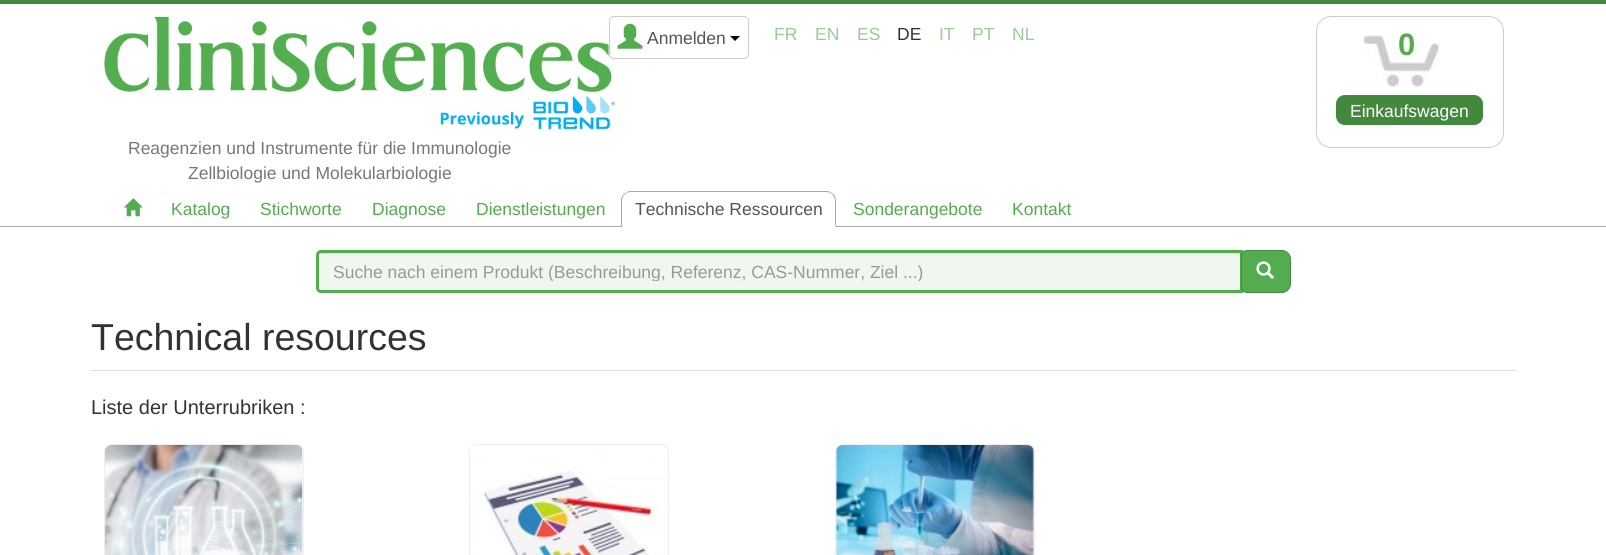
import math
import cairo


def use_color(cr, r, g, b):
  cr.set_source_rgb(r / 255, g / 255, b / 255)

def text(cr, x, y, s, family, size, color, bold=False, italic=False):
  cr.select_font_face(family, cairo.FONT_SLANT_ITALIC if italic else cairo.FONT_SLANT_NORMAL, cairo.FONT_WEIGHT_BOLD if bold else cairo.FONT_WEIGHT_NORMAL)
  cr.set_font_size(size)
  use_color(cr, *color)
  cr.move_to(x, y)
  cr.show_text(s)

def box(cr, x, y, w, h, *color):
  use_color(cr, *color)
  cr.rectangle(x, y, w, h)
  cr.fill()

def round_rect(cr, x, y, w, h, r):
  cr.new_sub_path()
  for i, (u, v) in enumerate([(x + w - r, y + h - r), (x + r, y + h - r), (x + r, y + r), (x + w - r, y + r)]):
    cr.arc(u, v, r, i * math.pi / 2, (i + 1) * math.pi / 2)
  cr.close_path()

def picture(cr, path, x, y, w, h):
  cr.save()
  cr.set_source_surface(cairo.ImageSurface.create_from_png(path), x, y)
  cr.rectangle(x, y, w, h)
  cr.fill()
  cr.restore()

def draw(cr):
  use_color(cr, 255, 255, 255)
  cr.paint()
  box(cr, 0, 0, 1606, 4, 66, 137, 62)
  box(cr, 0, 226, 1606, 1, 170, 170, 170)
  picture(cr, "img_03.png", 104, 16, 512, 114)
  round_rect(cr, 609.5, 16.5, 139, 42, 4.5)
  use_color(cr, 204, 204, 204)
  cr.set_line_width(1)
  cr.stroke()
  picture(cr, "img_01.png", 617, 23, 26, 26)
  use_color(cr, 0, 0, 0)
  cr.new_path()
  cr.move_to(730, 36)
  cr.line_to(740, 36)
  cr.line_to(735, 41)
  cr.close_path()
  cr.fill()
  round_rect(cr, 1316.5, 16.5, 187, 131, 14.5)
  use_color(cr, 204, 204, 204)
  cr.stroke()
  picture(cr, "img_02.png", 1363, 35, 76, 53)
  use_color(cr, 66, 137, 62)
  round_rect(cr, 1336.5, 95.5, 146, 29, 8.5)
  cr.fill_preserve()
  cr.stroke()
  picture(cr, "img_04.png", 124, 198, 19, 19)
  use_color(cr, 255, 255, 255)
  cr.new_path()
  cr.move_to(631, 191)
  cr.line_to(826, 191)
  cr.curve_to(831.5, 191, 836, 195.5, 836, 201)
  cr.line_to(836, 228)
  cr.line_to(621, 228)
  cr.line_to(621, 201)
  cr.curve_to(621, 195.5, 625.5, 191, 631, 191)
  cr.close_path()
  cr.fill()
  use_color(cr, 170, 170, 170)
  cr.new_path()
  cr.move_to(631, 192)
  cr.curve_to(628, 192, 626, 193, 625, 195)
  cr.line_to(624, 194)
  cr.curve_to(626, 193, 627, 192, 629, 191)
  cr.line_to(828, 191)
  cr.curve_to(830, 192, 832, 193, 833, 194)
  cr.line_to(833, 195)
  cr.curve_to(831, 193, 829, 192, 826, 192)
  cr.close_path()
  cr.fill()
  cr.new_path()
  cr.move_to(833.5, 194)
  cr.curve_to(835, 196, 836, 198.5, 836, 201)
  cr.line_to(836, 227)
  cr.line_to(835, 226)
  cr.line_to(835, 201)
  cr.curve_to(835, 198.5, 834, 196.5, 832.5, 195)
  cr.close_path()
  cr.fill()
  use_color(cr, 255, 255, 255)
  cr.new_path()
  cr.move_to(836, 227)
  cr.line_to(621, 228)
  cr.line_to(623, 226)
  cr.line_to(835, 226)
  cr.close_path()
  cr.fill()
  use_color(cr, 170, 170, 170)
  cr.new_path()
  cr.move_to(621, 227.5)
  cr.line_to(621, 199)
  cr.curve_to(621.5, 197, 622.5, 195.5, 624, 194)
  cr.line_to(624.5, 194.5)
  cr.curve_to(623, 196, 622, 198.5, 622, 201)
  cr.line_to(622, 226)
  cr.line_to(623, 226)
  cr.close_path()
  cr.fill()
  use_color(cr, 239, 247, 238)
  cr.new_path()
  cr.move_to(321, 250)
  cr.line_to(1243, 250)
  cr.line_to(1243, 293)
  cr.line_to(321, 293)
  cr.curve_to(318, 293, 316, 291, 316, 288)
  cr.line_to(316, 255)
  cr.curve_to(316, 252, 318, 250, 321, 250)
  cr.close_path()
  cr.fill()
  use_color(cr, 221, 228, 220)
  cr.new_path()
  cr.move_to(321, 254)
  cr.line_to(1240, 254)
  cr.line_to(1240, 253)
  cr.line_to(322, 253)
  cr.curve_to(320, 253, 319, 254, 319, 256)
  cr.curve_to(319, 255, 320, 254, 321, 254)
  cr.close_path()
  cr.fill()
  cr.new_path()
  cr.move_to(321, 251.5)
  cr.line_to(1241.5, 251.5)
  cr.line_to(1241.5, 291.5)
  cr.line_to(321, 291.5)
  cr.curve_to(319, 291.5, 317.5, 290, 317.5, 288)
  cr.line_to(317.5, 255)
  cr.curve_to(317.5, 253, 319, 251.5, 321, 251.5)
  cr.close_path()
  use_color(cr, 83, 172, 78)
  cr.set_line_width(3)
  cr.stroke()
  cr.new_path()
  cr.move_to(1247, 250.5)
  cr.line_to(1282, 250.5)
  cr.curve_to(1286.5, 250.5, 1290.5, 254.5, 1290.5, 259)
  cr.line_to(1290.5, 284)
  cr.curve_to(1290.5, 288.5, 1286.5, 292.5, 1282, 292.5)
  cr.line_to(1247, 292.5)
  cr.curve_to(1244, 292.5, 1241.5, 290, 1241.5, 287)
  cr.line_to(1241.5, 256)
  cr.curve_to(1241.5, 253, 1244, 250.5, 1247, 250.5)
  cr.close_path()
  cr.fill_preserve()
  use_color(cr, 66, 137, 62)
  cr.set_line_width(1)
  cr.stroke()
  picture(cr, "img_05.png", 1256, 261, 18, 18)
  box(cr, 91, 370, 1425, 1, 221, 221, 221)
  round_rect(cr, 104.5, 444.5, 199, 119, 7.5)
  use_color(cr, 238, 238, 238)
  cr.stroke()
  picture(cr, "img_06.png", 105, 445, 198, 110)
  round_rect(cr, 469.5, 444.5, 199, 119, 7.5)
  cr.stroke()
  picture(cr, "img_07.png", 470, 445, 197, 110)
  round_rect(cr, 835.5, 444.5, 199, 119, 7.5)
  cr.stroke()
  picture(cr, "img_08.png", 836, 445, 198, 110)
  text(cr, 647, 44, "Anmelden", "Liberation Sans", 17.5, (85, 85, 85))
  text(cr, 774, 40, "FR", "Liberation Sans", 17.5, (152, 205, 149))
  text(cr, 815, 40, "EN", "Liberation Sans", 17.5, (152, 205, 149))
  text(cr, 857, 40, "ES", "Liberation Sans", 17.5, (152, 205, 149))
  text(cr, 897, 40, "DE", "Liberation Sans", 17.5, (51, 51, 51))
  text(cr, 939, 40, "IT", "Liberation Sans", 17.5, (152, 205, 149))
  text(cr, 972, 40, "PT", "Liberation Sans", 17.5, (152, 205, 149))
  text(cr, 1012, 40, "NL", "Liberation Sans", 17.5, (152, 205, 149))
  text(cr, 1398, 55, "0", "Liberation Sans", 31, (83, 172, 78), bold=True)
  text(cr, 1350, 117, "Einkaufswagen", "Liberation Sans", 17.5, (255, 255, 255))
  text(cr, 128, 154, "Reagenzien und Instrumente für die Immunologie", "Liberation Sans", 17.5, (119, 119, 119))
  text(cr, 188, 179, "Zellbiologie und Molekularbiologie", "Liberation Sans", 17.5, (119, 119, 119))
  text(cr, 171, 215, "Katalog", "Liberation Sans", 17.5, (83, 172, 78))
  text(cr, 260, 215, "Stichworte", "Liberation Sans", 17.5, (83, 172, 78))
  text(cr, 372, 215, "Diagnose", "Liberation Sans", 17.5, (83, 172, 78))
  text(cr, 476, 215, "Dienstleistungen", "Liberation Sans", 17.5, (83, 172, 78))
  text(cr, 635, 215, "Technische Ressourcen", "Liberation Sans", 17.5, (85, 85, 85))
  text(cr, 853, 215, "Sonderangebote", "Liberation Sans", 17.5, (83, 172, 78))
  text(cr, 1012, 215, "Kontakt", "Liberation Sans", 17.5, (83, 172, 78))
  cr.save()
  cr.rectangle(334, 261, 891, 20)
  cr.clip()
  text(cr, 333, 278, "Suche nach einem Produkt (Beschreibung, Referenz, CAS-Nummer, Ziel ...)", "Liberation Sans", 17.5, (153, 153, 153))
  cr.restore()
  text(cr, 91, 350, "Technical resources", "Liberation Sans", 37.5, (51, 51, 51))
  text(cr, 91, 414, "Liste der Unterrubriken :", "Liberation Sans", 20, (51, 51, 51))


surface = cairo.ImageSurface(cairo.FORMAT_RGB24, 1606, 555)
cr = cairo.Context(surface)
options = cairo.FontOptions()
options.set_hint_metrics(cairo.HINT_METRICS_OFF)
options.set_hint_style(cairo.HINT_STYLE_NONE)
cr.set_font_options(options)
cr.set_miter_limit(4)
draw(cr)
surface.write_to_png("out.png")
